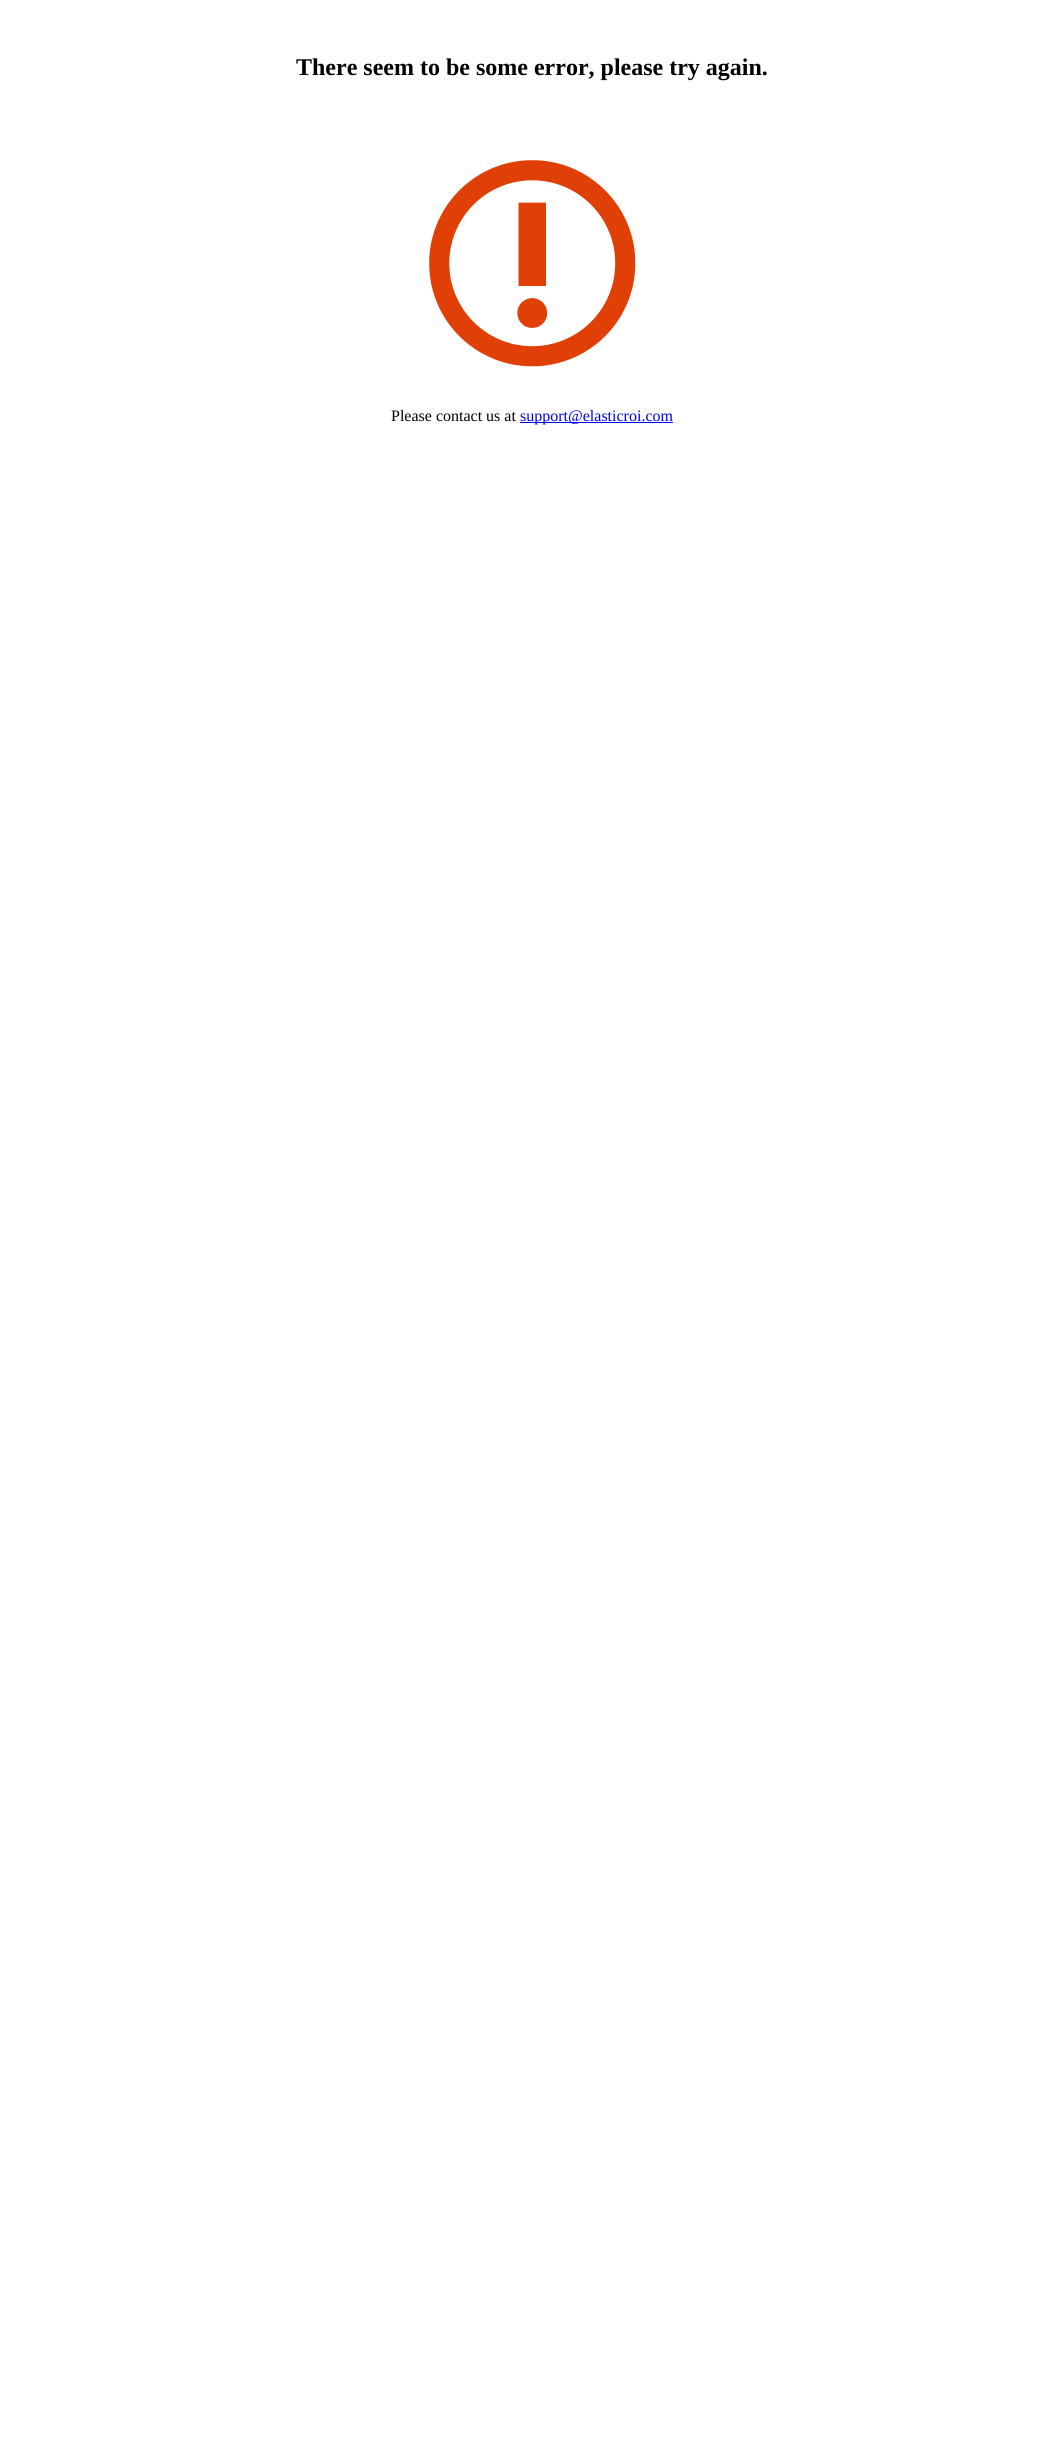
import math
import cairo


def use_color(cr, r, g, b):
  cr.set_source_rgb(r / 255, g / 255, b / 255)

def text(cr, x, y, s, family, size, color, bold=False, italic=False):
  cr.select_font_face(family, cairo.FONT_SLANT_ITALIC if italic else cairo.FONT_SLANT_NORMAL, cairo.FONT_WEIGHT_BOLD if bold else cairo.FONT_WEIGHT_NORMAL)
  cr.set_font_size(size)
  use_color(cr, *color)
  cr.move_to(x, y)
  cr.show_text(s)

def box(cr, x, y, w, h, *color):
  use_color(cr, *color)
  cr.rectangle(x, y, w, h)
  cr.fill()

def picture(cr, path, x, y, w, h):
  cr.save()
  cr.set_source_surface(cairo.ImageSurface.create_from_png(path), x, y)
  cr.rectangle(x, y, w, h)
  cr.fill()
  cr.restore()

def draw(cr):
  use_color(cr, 255, 255, 255)
  cr.paint()
  picture(cr, "img_01.png", 429, 160, 207, 207)
  box(cr, 520, 422, 153, 1, 0, 0, 238)
  text(cr, 296, 75, "There seem to be some error, please try again.", "Liberation Serif", 24, (0, 0, 0), bold=True)
  text(cr, 391, 421, "Please contact us at", "Liberation Serif", 16, (0, 0, 0))
  text(cr, 520, 421, "support@elasticroi.com", "Liberation Serif", 16, (0, 0, 238))


surface = cairo.ImageSurface(cairo.FORMAT_RGB24, 1064, 2453)
cr = cairo.Context(surface)
options = cairo.FontOptions()
options.set_hint_metrics(cairo.HINT_METRICS_OFF)
options.set_hint_style(cairo.HINT_STYLE_NONE)
cr.set_font_options(options)
cr.set_miter_limit(4)
draw(cr)
surface.write_to_png("out.png")
